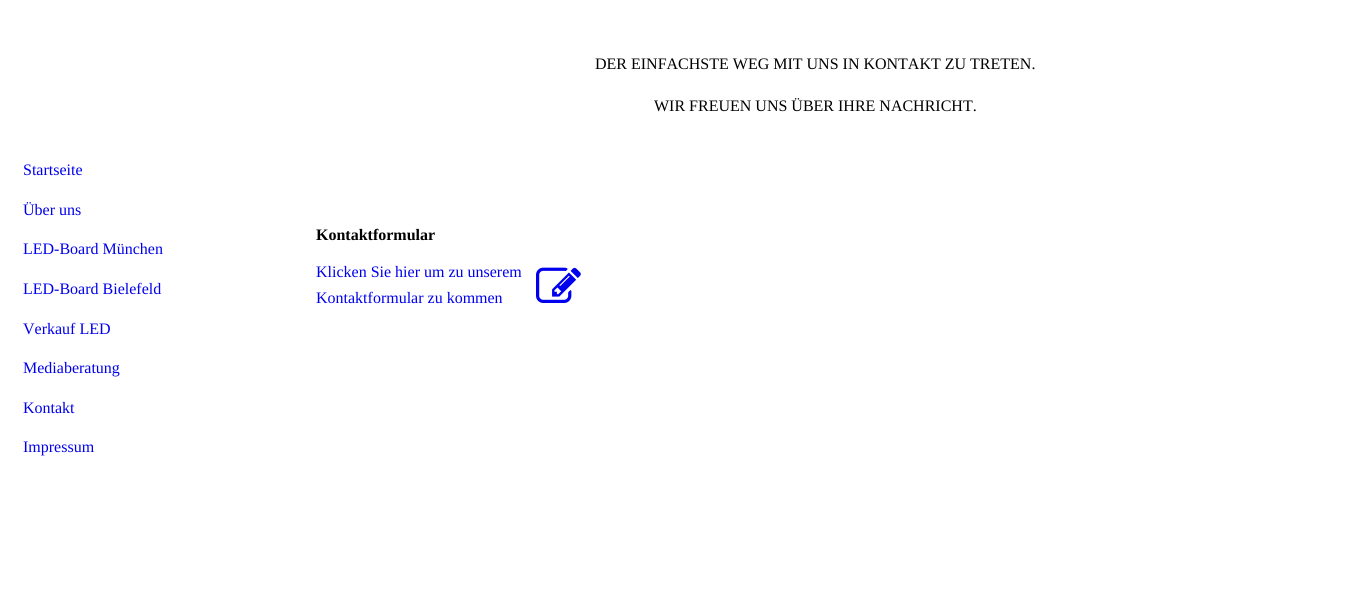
import math
import cairo


def use_color(cr, r, g, b):
  cr.set_source_rgb(r / 255, g / 255, b / 255)

def text(cr, x, y, s, family, size, color, bold=False, italic=False):
  cr.select_font_face(family, cairo.FONT_SLANT_ITALIC if italic else cairo.FONT_SLANT_NORMAL, cairo.FONT_WEIGHT_BOLD if bold else cairo.FONT_WEIGHT_NORMAL)
  cr.set_font_size(size)
  use_color(cr, *color)
  cr.move_to(x, y)
  cr.show_text(s)

def picture(cr, path, x, y, w, h):
  cr.save()
  cr.set_source_surface(cairo.ImageSurface.create_from_png(path), x, y)
  cr.rectangle(x, y, w, h)
  cr.fill()
  cr.restore()

def draw(cr):
  use_color(cr, 255, 255, 255)
  cr.paint()
  picture(cr, "img_01.png", 536, 267, 45, 36)
  text(cr, 23, 175, "Startseite", "Liberation Serif", 16, (0, 0, 238))
  text(cr, 23, 215, "Über uns", "Liberation Serif", 16, (0, 0, 238))
  text(cr, 23, 254, "LED-Board München", "Liberation Serif", 16, (0, 0, 238))
  text(cr, 23, 294, "LED-Board Bielefeld", "Liberation Serif", 16, (0, 0, 238))
  text(cr, 23, 334, "Verkauf LED", "Liberation Serif", 16, (0, 0, 238))
  text(cr, 23, 373, "Mediaberatung", "Liberation Serif", 16, (0, 0, 238))
  text(cr, 23, 413, "Kontakt", "Liberation Serif", 16, (0, 0, 238))
  text(cr, 23, 452, "Impressum", "Liberation Serif", 16, (0, 0, 238))
  text(cr, 595, 69, "DER EINFACHSTE WEG MIT UNS IN KONTAKT ZU TRETEN.", "Liberation Serif", 16, (0, 0, 0))
  text(cr, 654, 111, "WIR FREUEN UNS ÜBER IHRE NACHRICHT.", "Liberation Serif", 16, (0, 0, 0))
  text(cr, 316, 240, "Kontaktformular", "Liberation Serif", 16, (0, 0, 0), bold=True)
  text(cr, 316, 277, "Klicken Sie hier um zu unserem", "Liberation Serif", 16, (0, 0, 238))
  text(cr, 316, 303, "Kontaktformular zu kommen", "Liberation Serif", 16, (0, 0, 238))


surface = cairo.ImageSurface(cairo.FORMAT_RGB24, 1371, 603)
cr = cairo.Context(surface)
options = cairo.FontOptions()
options.set_hint_metrics(cairo.HINT_METRICS_OFF)
options.set_hint_style(cairo.HINT_STYLE_NONE)
cr.set_font_options(options)
cr.set_miter_limit(4)
draw(cr)
surface.write_to_png("out.png")
